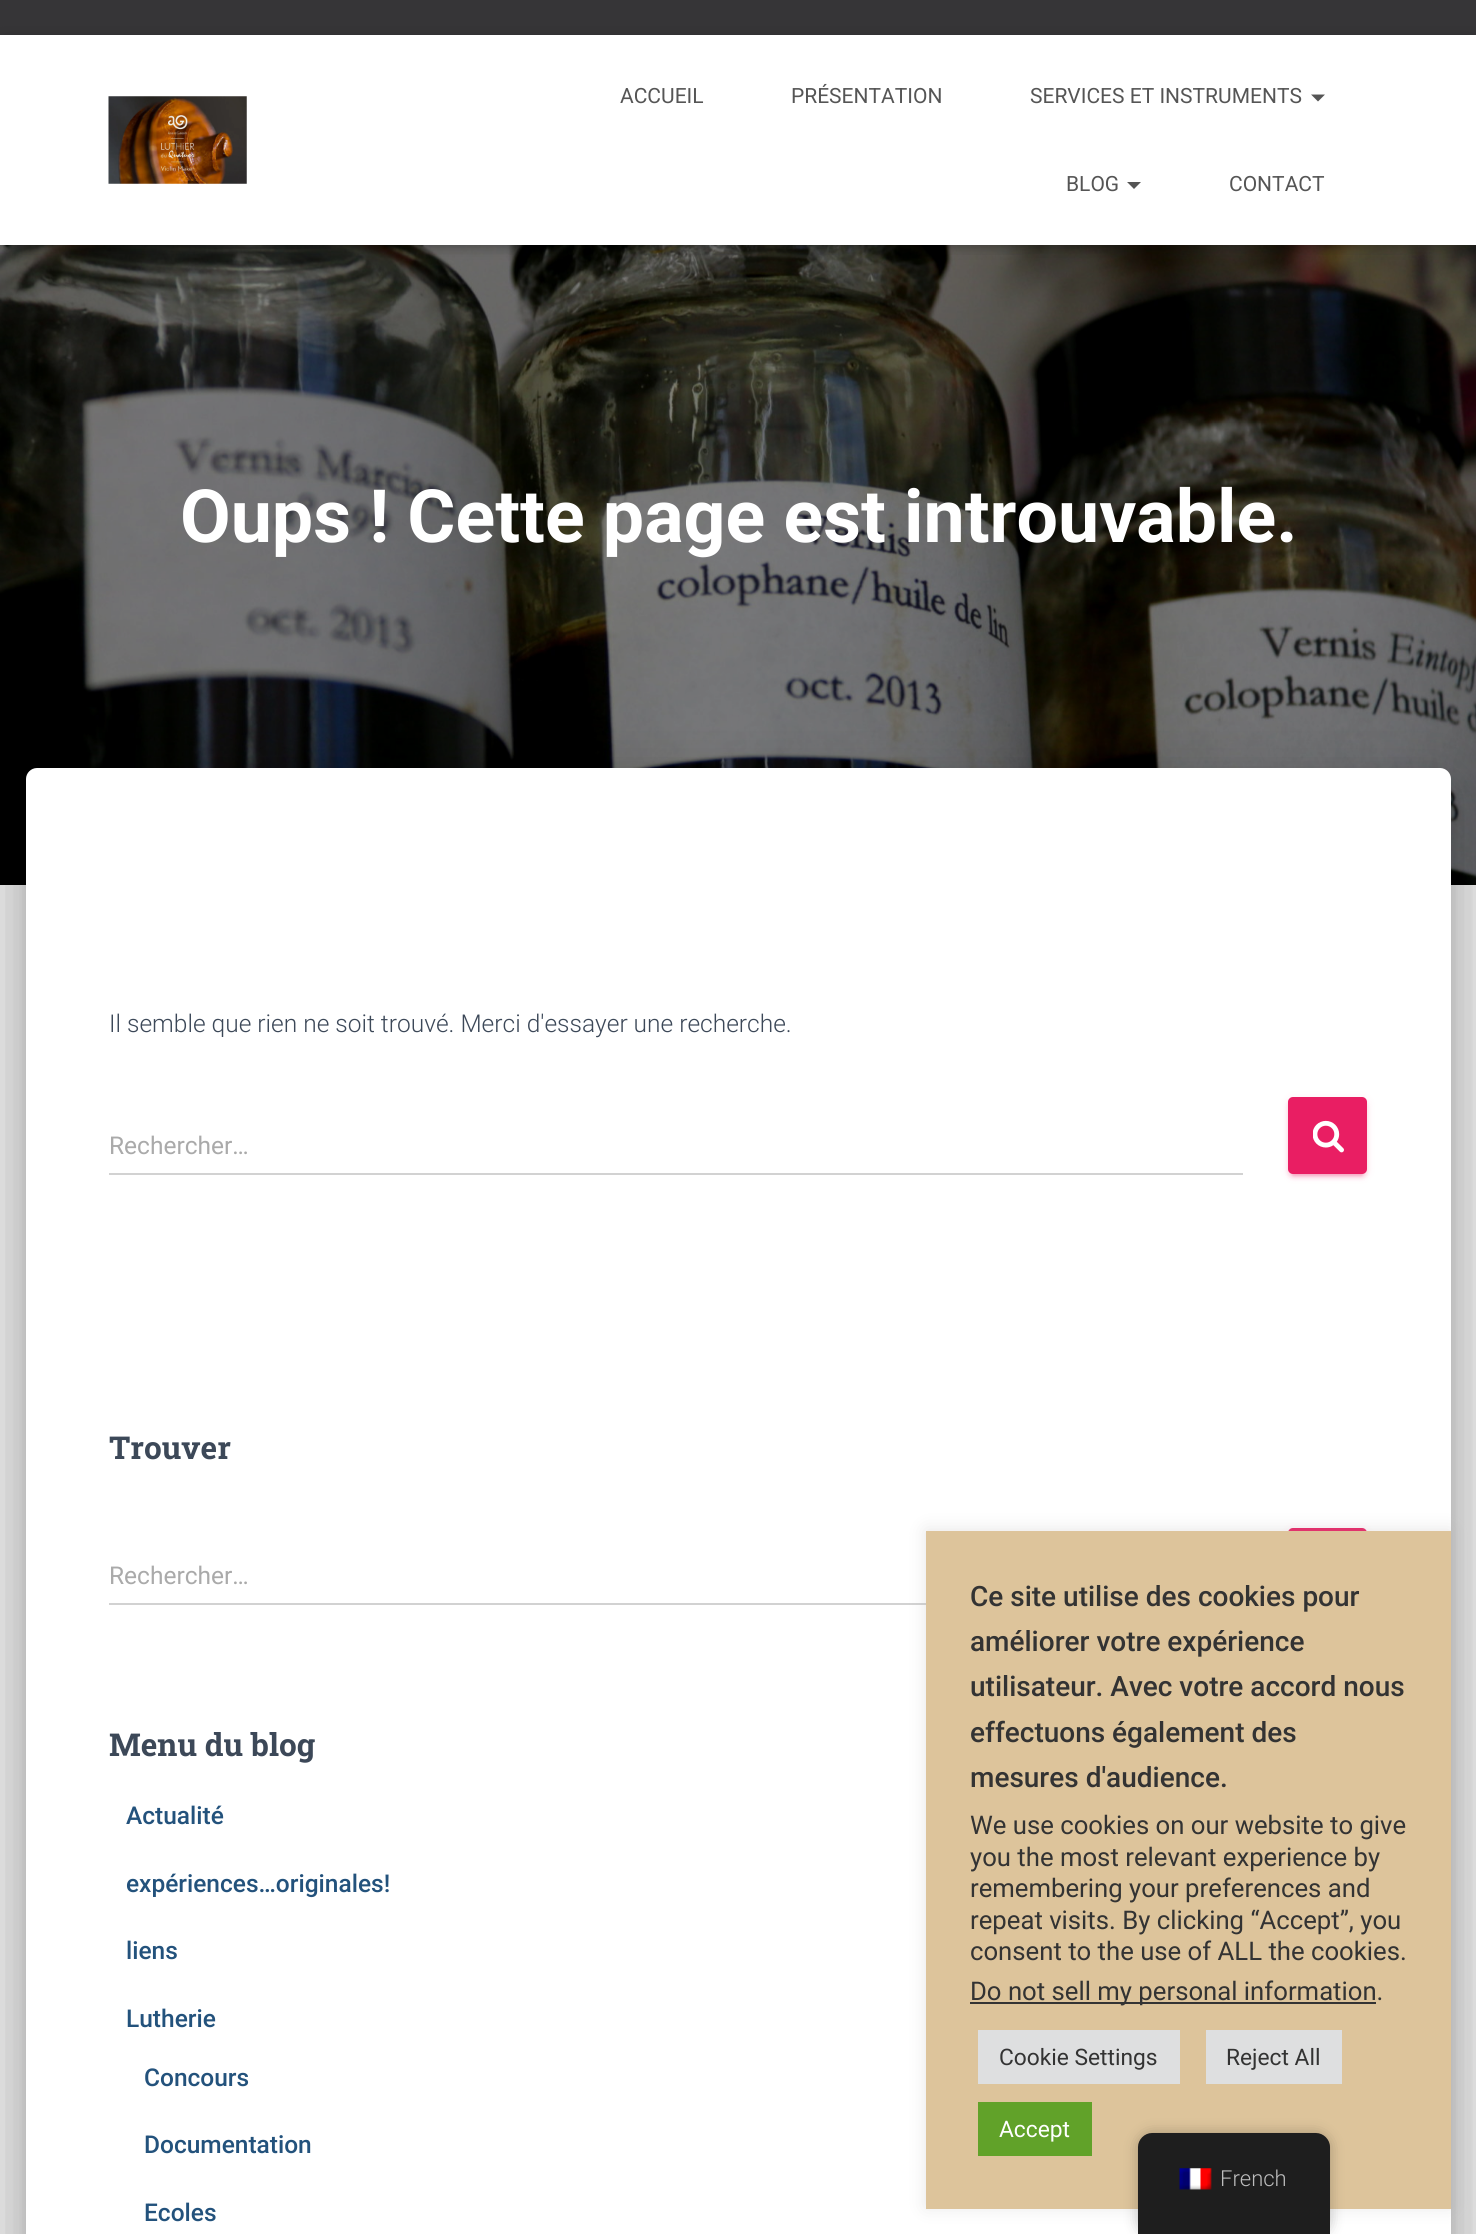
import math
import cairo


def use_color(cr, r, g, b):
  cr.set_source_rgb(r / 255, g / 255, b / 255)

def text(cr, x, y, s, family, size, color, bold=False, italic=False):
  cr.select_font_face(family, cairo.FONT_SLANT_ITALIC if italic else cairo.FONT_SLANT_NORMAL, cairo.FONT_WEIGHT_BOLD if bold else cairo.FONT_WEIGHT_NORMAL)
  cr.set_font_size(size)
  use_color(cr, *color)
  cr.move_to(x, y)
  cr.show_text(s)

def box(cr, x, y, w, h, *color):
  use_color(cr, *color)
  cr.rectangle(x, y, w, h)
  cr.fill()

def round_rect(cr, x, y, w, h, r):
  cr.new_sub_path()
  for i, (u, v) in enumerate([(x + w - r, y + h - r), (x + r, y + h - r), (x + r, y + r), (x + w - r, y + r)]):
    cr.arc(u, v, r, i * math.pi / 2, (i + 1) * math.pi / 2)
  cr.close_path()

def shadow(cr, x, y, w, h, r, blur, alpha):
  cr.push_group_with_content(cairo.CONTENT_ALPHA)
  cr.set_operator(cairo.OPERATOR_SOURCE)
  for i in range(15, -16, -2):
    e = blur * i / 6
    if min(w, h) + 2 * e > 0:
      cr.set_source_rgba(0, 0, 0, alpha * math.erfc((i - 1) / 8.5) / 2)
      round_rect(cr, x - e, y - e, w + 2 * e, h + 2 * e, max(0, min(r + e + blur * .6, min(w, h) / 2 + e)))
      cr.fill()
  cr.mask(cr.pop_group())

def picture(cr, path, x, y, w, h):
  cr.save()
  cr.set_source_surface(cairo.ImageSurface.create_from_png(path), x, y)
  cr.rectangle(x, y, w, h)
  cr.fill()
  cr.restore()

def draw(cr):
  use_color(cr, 229, 229, 229)
  cr.paint()
  box(cr, 0, 0, 1476, 35, 54, 53, 55)
  picture(cr, "img_02.png", 0, 245, 1476, 640)
  use_color(cr, 0, 0, 0)
  shadow(cr, 4, 46, 1470, 203, 0, 4.5, 0.1)
  shadow(cr, 0, 37, 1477, 210, 0, 9, 0.12)
  shadow(cr, 11, 47, 1456, 189, 0, 9, 0.42)
  box(cr, 0, 35, 1476, 210, 255, 255, 255)
  picture(cr, "img_01.png", 108, 96, 139, 88)
  use_color(cr, 85, 85, 85)
  cr.new_path()
  cr.move_to(1311, 94.5)
  cr.line_to(1325, 94.5)
  cr.line_to(1318, 101.5)
  cr.close_path()
  cr.fill()
  cr.new_path()
  cr.move_to(1127, 182)
  cr.line_to(1141, 182)
  cr.line_to(1134, 189)
  cr.close_path()
  cr.fill()
  use_color(cr, 0, 0, 0)
  shadow(cr, 35, 791, 1407, 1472, 2, 9, 0.2)
  shadow(cr, 18, 770, 1442, 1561, 19, 26, 0.12)
  shadow(cr, 23, 793, 1431, 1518, 14, 21, 0.14)
  use_color(cr, 255, 255, 255)
  cr.new_path()
  cr.move_to(37, 768)
  cr.line_to(1440, 768)
  cr.curve_to(1446, 768, 1451, 773, 1451, 779)
  cr.line_to(1451, 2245)
  cr.line_to(26, 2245)
  cr.line_to(26, 779)
  cr.curve_to(26, 773, 31, 768, 37, 768)
  cr.close_path()
  cr.fill()
  box(cr, 109, 1173, 1134, 2, 210, 210, 210)
  use_color(cr, 233, 30, 99)
  shadow(cr, 1288, 1099, 79, 77, 5, 4.5, 0.12)
  shadow(cr, 1292, 1106, 71, 70, 2, 1, 0.2)
  shadow(cr, 1288, 1101, 79, 77, 5, 2, 0.14)
  use_color(cr, 233, 30, 99)
  round_rect(cr, 1288, 1097, 79, 77, 5)
  cr.fill()
  picture(cr, "img_03.png", 1313, 1120, 31, 33)
  box(cr, 109, 1603, 817, 2, 210, 210, 210)
  use_color(cr, 233, 30, 99)
  shadow(cr, 1288, 1530, 79, 75, 5, 4.5, 0.12)
  use_color(cr, 233, 30, 99)
  round_rect(cr, 1288, 1528, 79, 75, 5)
  cr.fill()
  use_color(cr, 172, 171, 171)
  shadow(cr, 926, 1530, 525, 677, 0, 9, 0.3)
  box(cr, 926, 1531, 525, 678, 221, 196, 155)
  box(cr, 970, 2002, 406, 2, 51, 51, 51)
  box(cr, 978, 2030, 202, 54, 222, 223, 224)
  box(cr, 1206, 2030, 136, 54, 222, 223, 224)
  box(cr, 978, 2102, 114, 54, 97, 162, 41)
  use_color(cr, 0, 0, 0)
  shadow(cr, 1138, 2133, 192, 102, 14, 7, 0.25)
  use_color(cr, 30, 30, 30)
  cr.new_path()
  cr.move_to(1152, 2133)
  cr.line_to(1316, 2133)
  cr.curve_to(1323.5, 2133, 1330, 2139.5, 1330, 2147)
  cr.line_to(1330, 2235)
  cr.line_to(1138, 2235)
  cr.line_to(1138, 2147)
  cr.curve_to(1138, 2139.5, 1144.5, 2133, 1152, 2133)
  cr.close_path()
  cr.fill()
  picture(cr, "img_04.png", 1179, 2168, 33, 22)
  text(cr, 620, 103, "ACCUEIL", "Roboto", 21, (85, 85, 85))
  text(cr, 791, 103, "PRÉSENTATION", "Roboto", 21, (85, 85, 85))
  text(cr, 1030, 103, "SERVICES ET INSTRUMENTS", "Roboto", 21, (85, 85, 85))
  text(cr, 1066, 191, "BLOG", "Roboto", 21, (85, 85, 85))
  text(cr, 1229, 191, "CONTACT", "Roboto", 21, (85, 85, 85))
  text(cr, 180, 542, "Oups ! Cette page est introuvable.", "Roboto", 73.5, (255, 255, 255), bold=True)
  text(cr, 109, 1032, "Il semble que rien ne soit trouvé. Merci d'essayer une recherche.", "Roboto Light", 24.5, (60, 72, 88))
  text(cr, 109, 1154, "Rechercher…", "Roboto", 24.5, (170, 170, 170))
  text(cr, 109, 1459, "Trouver", "Roboto Slab", 31.5, (60, 72, 88), bold=True)
  text(cr, 109, 1584, "Rechercher…", "Roboto", 24.5, (170, 170, 170))
  text(cr, 109, 1756, "Menu du blog", "Roboto Slab", 31.5, (60, 72, 88), bold=True)
  text(cr, 126, 1824, "Actualité", "Roboto Medium", 24.5, (35, 82, 124))
  text(cr, 126, 1892, "expériences…originales!", "Roboto Medium", 24.5, (35, 82, 124))
  text(cr, 126, 1959, "liens", "Roboto Medium", 24.5, (35, 82, 124))
  text(cr, 126, 2027, "Lutherie", "Roboto Medium", 24.5, (35, 82, 124))
  text(cr, 144, 2086, "Concours", "Roboto Medium", 24.5, (35, 82, 124))
  text(cr, 144, 2153, "Documentation", "Roboto Medium", 24.5, (35, 82, 124))
  text(cr, 144, 2221, "Ecoles", "Roboto Medium", 24.5, (35, 82, 124))
  text(cr, 970, 1606, "Ce site utilise des cookies pour", "Roboto Medium", 28, (51, 51, 51))
  text(cr, 970, 1651, "améliorer votre expérience", "Roboto Medium", 28, (51, 51, 51))
  text(cr, 970, 1696, "utilisateur. Avec votre accord nous", "Roboto Medium", 28, (51, 51, 51))
  text(cr, 970, 1742, "effectuons également des", "Roboto Medium", 28, (51, 51, 51))
  text(cr, 970, 1787, "mesures d'audience.", "Roboto Medium", 28, (51, 51, 51))
  text(cr, 970, 1834, "We use cookies on our website to give", "Roboto", 25.7, (51, 51, 51))
  text(cr, 970, 1866, "you the most relevant experience by", "Roboto", 25.7, (51, 51, 51))
  text(cr, 970, 1897, "remembering your preferences and", "Roboto", 25.7, (51, 51, 51))
  text(cr, 970, 1929, "repeat visits. By clicking “Accept”, you", "Roboto", 25.7, (51, 51, 51))
  text(cr, 970, 1960, "consent to the use of ALL the cookies.", "Roboto", 25.7, (51, 51, 51))
  text(cr, 970, 2000, "Do not sell my personal information.", "Roboto", 25.7, (51, 51, 51))
  text(cr, 999, 2065, "Cookie Settings", "Roboto", 22.75, (51, 51, 51))
  text(cr, 1226, 2065, "Reject All", "Roboto", 22.75, (51, 51, 51))
  text(cr, 999, 2137, "Accept", "Roboto", 22.75, (255, 255, 255))
  text(cr, 1220, 2186, "French", "Roboto Light", 22, (189, 189, 189))


surface = cairo.ImageSurface(cairo.FORMAT_RGB24, 1476, 2234)
cr = cairo.Context(surface)
options = cairo.FontOptions()
options.set_hint_metrics(cairo.HINT_METRICS_OFF)
options.set_hint_style(cairo.HINT_STYLE_NONE)
cr.set_font_options(options)
cr.set_miter_limit(4)
draw(cr)
surface.write_to_png("out.png")
